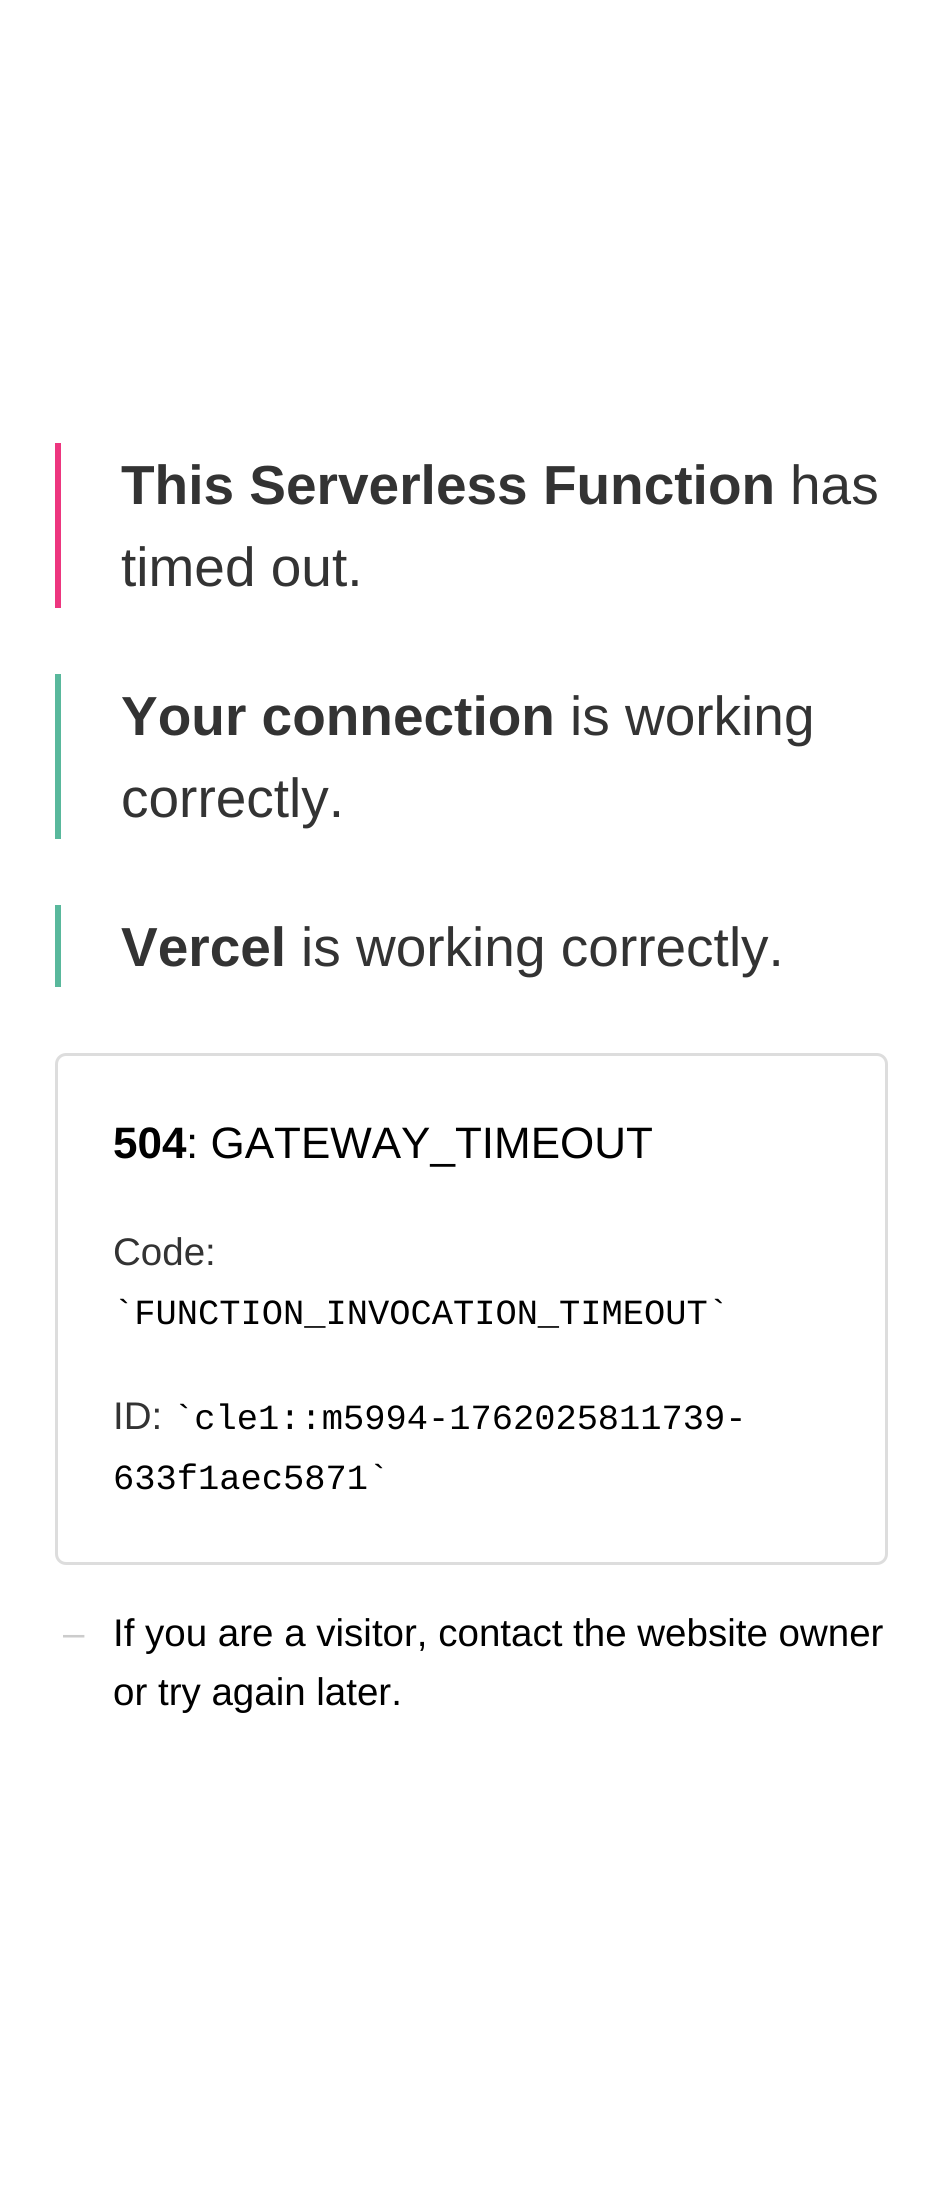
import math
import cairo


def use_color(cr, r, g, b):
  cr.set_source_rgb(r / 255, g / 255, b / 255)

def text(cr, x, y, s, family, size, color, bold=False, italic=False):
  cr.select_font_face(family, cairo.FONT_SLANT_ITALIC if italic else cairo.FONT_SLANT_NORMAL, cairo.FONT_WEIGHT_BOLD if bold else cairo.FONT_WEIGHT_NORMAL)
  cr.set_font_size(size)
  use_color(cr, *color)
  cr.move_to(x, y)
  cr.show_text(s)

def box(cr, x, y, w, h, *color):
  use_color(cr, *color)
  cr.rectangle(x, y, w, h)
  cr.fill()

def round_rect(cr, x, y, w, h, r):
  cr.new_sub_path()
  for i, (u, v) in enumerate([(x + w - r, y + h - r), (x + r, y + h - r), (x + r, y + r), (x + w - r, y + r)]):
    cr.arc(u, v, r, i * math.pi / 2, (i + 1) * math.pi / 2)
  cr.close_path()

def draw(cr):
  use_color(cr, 255, 255, 255)
  cr.paint()
  box(cr, 55, 443, 6, 165, 237, 54, 127)
  box(cr, 55, 674, 6, 165, 89, 184, 156)
  box(cr, 55, 905, 6, 82, 89, 184, 156)
  round_rect(cr, 56.5, 1054.5, 830, 509, 9.5)
  use_color(cr, 221, 221, 221)
  cr.set_line_width(3)
  cr.stroke()
  text(cr, 121, 504, "This Serverless Function", "Liberation Sans", 55, (51, 51, 51), bold=True)
  text(cr, 790, 504, "has", "Liberation Sans", 55, (51, 51, 51))
  text(cr, 121, 586, "timed out.", "Liberation Sans", 55, (51, 51, 51))
  text(cr, 121, 735, "Your connection", "Liberation Sans", 55, (51, 51, 51), bold=True)
  text(cr, 570, 735, "is working", "Liberation Sans", 55, (51, 51, 51))
  text(cr, 121, 817, "correctly.", "Liberation Sans", 55, (51, 51, 51))
  text(cr, 121, 966, "Vercel", "Liberation Sans", 55, (51, 51, 51), bold=True)
  text(cr, 301, 966, "is working correctly.", "Liberation Sans", 55, (51, 51, 51))
  text(cr, 113, 1158, "504", "Liberation Sans", 44, (0, 0, 0), bold=True)
  text(cr, 186, 1158, ": GATEWAY_TIMEOUT", "Liberation Sans", 44, (0, 0, 0))
  text(cr, 113, 1265, "Code:", "Liberation Sans", 38.5, (51, 51, 51))
  text(cr, 113, 1324, "`FUNCTION_INVOCATION_TIMEOUT`", "Liberation Mono", 35.4, (0, 0, 0))
  text(cr, 113, 1429, "ID:", "Liberation Sans", 38.5, (51, 51, 51))
  text(cr, 173, 1429, "`cle1::m5994-1762025811739-", "Liberation Mono", 35.4, (0, 0, 0))
  text(cr, 113, 1489, "633f1aec5871`", "Liberation Mono", 35.4, (0, 0, 0))
  text(cr, 63, 1646, "–", "Liberation Sans", 38.5, (204, 204, 204))
  text(cr, 113, 1646, "If you are a visitor, contact the website owner", "Liberation Sans", 38.5, (0, 0, 0))
  text(cr, 113, 1705, "or try again later.", "Liberation Sans", 38.5, (0, 0, 0))


surface = cairo.ImageSurface(cairo.FORMAT_RGB24, 941, 2199)
cr = cairo.Context(surface)
options = cairo.FontOptions()
options.set_hint_metrics(cairo.HINT_METRICS_OFF)
options.set_hint_style(cairo.HINT_STYLE_NONE)
cr.set_font_options(options)
cr.set_miter_limit(4)
draw(cr)
surface.write_to_png("out.png")
